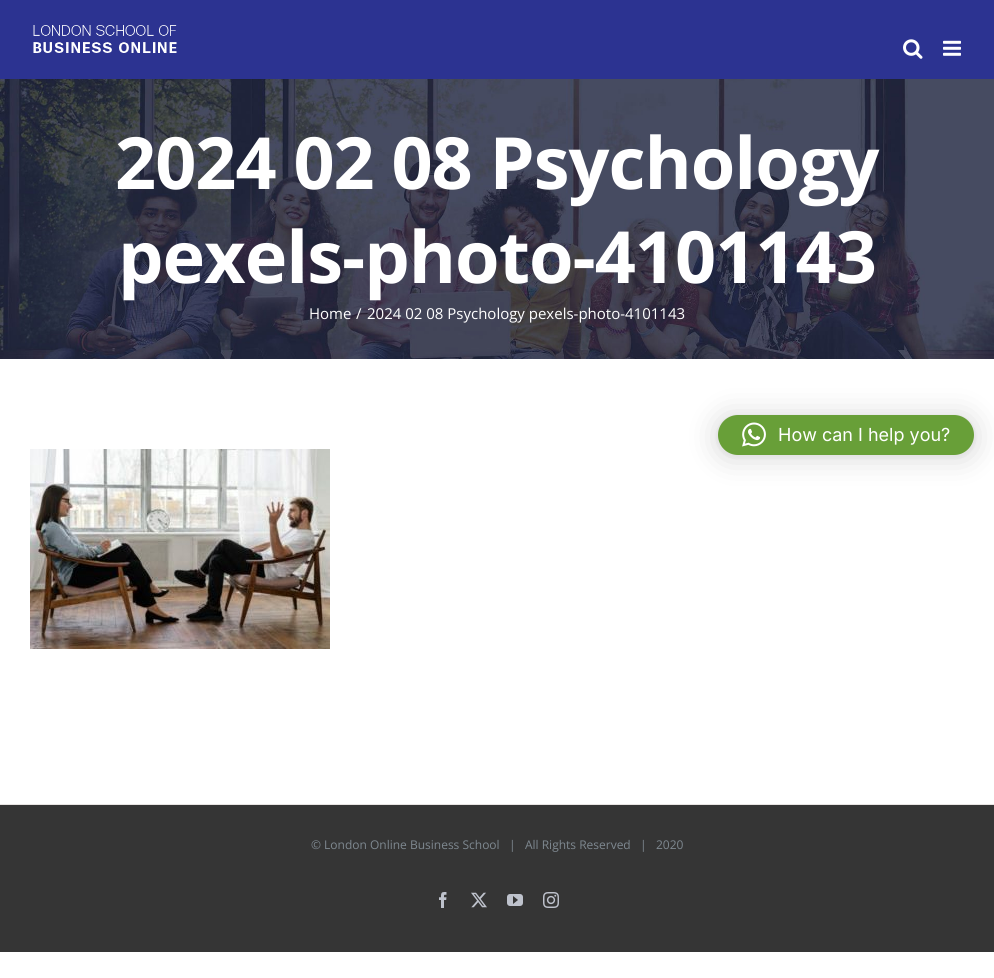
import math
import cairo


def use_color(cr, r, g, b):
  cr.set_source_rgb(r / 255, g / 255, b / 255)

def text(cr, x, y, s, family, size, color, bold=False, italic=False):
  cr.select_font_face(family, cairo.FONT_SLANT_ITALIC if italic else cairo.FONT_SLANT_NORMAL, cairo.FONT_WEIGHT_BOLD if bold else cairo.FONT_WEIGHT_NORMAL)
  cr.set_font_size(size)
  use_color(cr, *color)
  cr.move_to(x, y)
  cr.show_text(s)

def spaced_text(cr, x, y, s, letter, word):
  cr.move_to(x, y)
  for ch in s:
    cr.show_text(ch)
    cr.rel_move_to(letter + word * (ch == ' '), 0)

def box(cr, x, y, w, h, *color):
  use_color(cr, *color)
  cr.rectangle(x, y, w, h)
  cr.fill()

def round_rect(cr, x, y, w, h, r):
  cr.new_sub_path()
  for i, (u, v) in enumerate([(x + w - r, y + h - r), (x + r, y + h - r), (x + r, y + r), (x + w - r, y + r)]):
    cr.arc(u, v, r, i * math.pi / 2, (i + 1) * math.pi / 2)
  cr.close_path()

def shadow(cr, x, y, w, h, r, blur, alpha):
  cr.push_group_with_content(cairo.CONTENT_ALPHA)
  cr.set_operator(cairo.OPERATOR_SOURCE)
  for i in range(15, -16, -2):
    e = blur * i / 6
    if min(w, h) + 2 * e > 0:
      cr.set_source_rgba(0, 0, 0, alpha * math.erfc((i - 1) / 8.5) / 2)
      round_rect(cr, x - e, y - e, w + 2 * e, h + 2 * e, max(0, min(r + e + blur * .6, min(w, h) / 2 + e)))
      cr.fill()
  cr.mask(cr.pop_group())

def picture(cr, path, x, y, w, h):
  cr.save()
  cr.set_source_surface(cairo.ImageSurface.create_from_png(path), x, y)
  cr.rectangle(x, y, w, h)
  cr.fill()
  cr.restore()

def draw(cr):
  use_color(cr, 255, 255, 255)
  cr.paint()
  box(cr, 0, 0, 994, 79, 44, 51, 145)
  picture(cr, "img_01.png", 33, 25, 144, 28)
  picture(cr, "img_02.png", 903, 39, 20, 20)
  picture(cr, "img_03.png", 943, 40, 18, 16)
  picture(cr, "img_04.png", 0, 79, 994, 280)
  picture(cr, "img_05.png", 30, 449, 300, 200)
  box(cr, 0, 805, 994, 147, 53, 53, 53)
  box(cr, 0, 804, 994, 1, 231, 228, 226)
  picture(cr, "img_06.png", 439, 892, 8, 16)
  picture(cr, "img_07.png", 471, 892, 16, 16)
  picture(cr, "img_08.png", 507, 894, 16, 12)
  picture(cr, "img_09.png", 543, 892, 16, 16)
  use_color(cr, 0, 0, 0)
  shadow(cr, 718, 417, 256, 40, 20, 16, 0.16)
  shadow(cr, 718, 416, 256, 40, 20, 3, 0.06)
  use_color(cr, 104, 159, 56)
  round_rect(cr, 718, 415, 256, 40, 20)
  cr.fill()
  picture(cr, "img_10.png", 742, 422, 24, 25)
  cr.select_font_face("Open Sans", cairo.FONT_SLANT_NORMAL, cairo.FONT_WEIGHT_BOLD)
  cr.set_font_size(72)
  use_color(cr, 255, 255, 255)
  spaced_text(cr, 115, 189, "2024 02 08 Psychology", -1, 0)
  spaced_text(cr, 118, 283, "pexels-photo-4101143", -1, 0)
  text(cr, 309, 319, "Home", "Open Sans", 15, (255, 255, 255))
  text(cr, 356, 319, "/", "Open Sans", 15, (255, 255, 255))
  text(cr, 367, 319, "2024 02 08 Psychology pexels-photo-4101143", "Open Sans", 15, (255, 255, 255))
  text(cr, 311, 849, "© London Online Business School", "Open Sans", 12, (126, 136, 144))
  text(cr, 509, 849, "|   All Rights Reserved   |   2020", "Open Sans", 12, (126, 136, 144))
  text(cr, 778, 441, "How can I help you?", "Inter", 18, (255, 255, 255))


surface = cairo.ImageSurface(cairo.FORMAT_RGB24, 994, 978)
cr = cairo.Context(surface)
options = cairo.FontOptions()
options.set_hint_metrics(cairo.HINT_METRICS_OFF)
options.set_hint_style(cairo.HINT_STYLE_NONE)
cr.set_font_options(options)
cr.set_miter_limit(4)
draw(cr)
surface.write_to_png("out.png")
